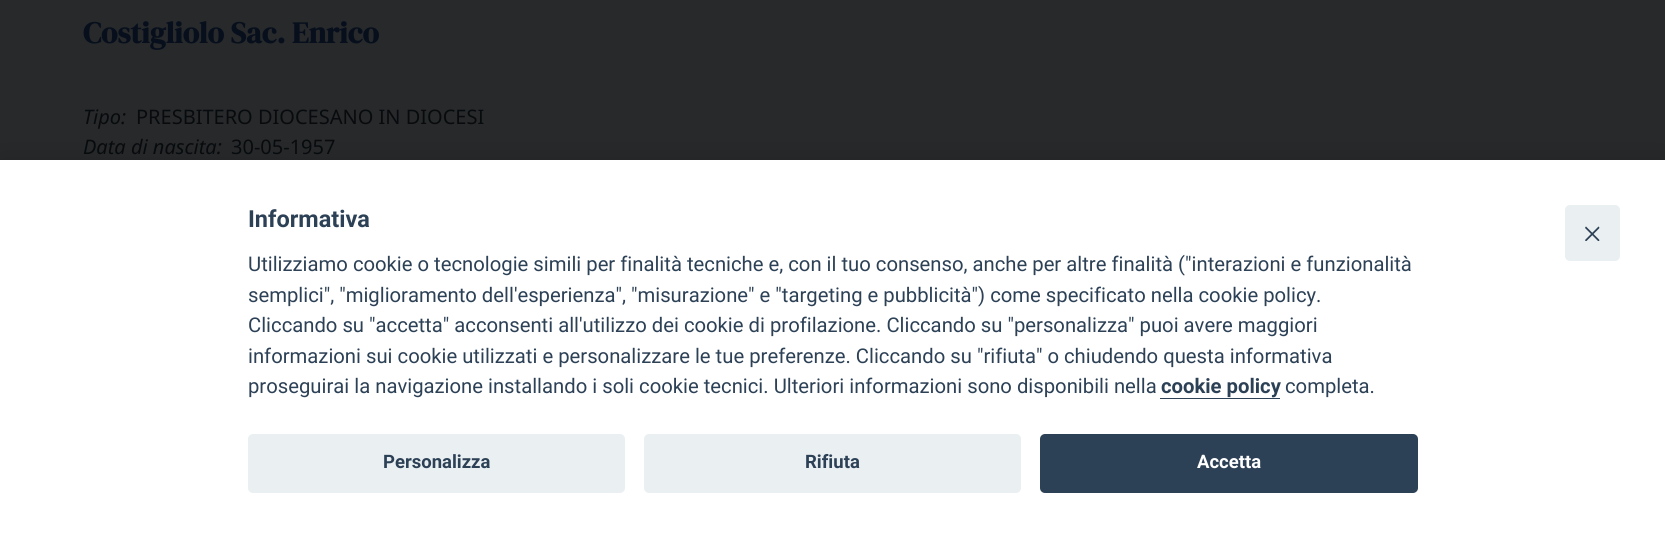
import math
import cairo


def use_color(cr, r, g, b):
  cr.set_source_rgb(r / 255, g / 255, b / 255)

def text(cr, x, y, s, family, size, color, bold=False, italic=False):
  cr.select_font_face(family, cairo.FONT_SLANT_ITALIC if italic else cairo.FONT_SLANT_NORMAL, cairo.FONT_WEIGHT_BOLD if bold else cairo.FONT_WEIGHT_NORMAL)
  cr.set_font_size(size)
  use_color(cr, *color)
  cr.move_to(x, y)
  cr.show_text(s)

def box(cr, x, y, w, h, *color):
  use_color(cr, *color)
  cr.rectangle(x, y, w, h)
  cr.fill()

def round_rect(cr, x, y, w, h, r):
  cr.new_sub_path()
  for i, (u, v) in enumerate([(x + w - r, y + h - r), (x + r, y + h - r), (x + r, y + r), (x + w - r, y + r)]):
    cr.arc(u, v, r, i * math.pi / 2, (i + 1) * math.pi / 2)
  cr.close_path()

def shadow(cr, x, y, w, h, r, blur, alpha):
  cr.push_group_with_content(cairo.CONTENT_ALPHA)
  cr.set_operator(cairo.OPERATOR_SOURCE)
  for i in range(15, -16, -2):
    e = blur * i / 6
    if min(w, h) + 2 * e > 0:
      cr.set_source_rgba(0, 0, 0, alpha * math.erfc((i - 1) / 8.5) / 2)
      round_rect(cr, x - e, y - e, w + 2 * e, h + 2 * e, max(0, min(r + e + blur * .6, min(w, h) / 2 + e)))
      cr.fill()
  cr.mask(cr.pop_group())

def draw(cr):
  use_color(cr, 255, 255, 255)
  cr.paint()
  gradient = cairo.LinearGradient(833, -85, 833, 345)
  gradient.add_color_stop_rgba(0, 0.153, 0.161, 0.169, 1)
  gradient.add_color_stop_rgba(0.7, 0.153, 0.161, 0.169, 1)
  gradient.add_color_stop_rgba(1, 0.165, 0.169, 0.176, 1)
  cr.set_source(gradient)
  cr.rectangle(0, 0, 1665, 160)
  cr.fill()
  use_color(cr, 2, 2, 3)
  shadow(cr, 0, 174, 1665, 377, 0, 21, 0.28)
  box(cr, 0, 160, 1665, 377, 255, 255, 255)
  box(cr, 1160, 398, 120, 1, 45, 65, 86)
  use_color(cr, 234, 239, 242)
  round_rect(cr, 248, 434, 377, 59, 5)
  cr.fill()
  round_rect(cr, 644, 434, 377, 59, 5)
  cr.fill()
  use_color(cr, 45, 65, 86)
  round_rect(cr, 1040, 434, 378, 59, 5)
  cr.fill()
  use_color(cr, 234, 239, 242)
  round_rect(cr, 1565, 205, 55, 56, 5)
  cr.fill()
  use_color(cr, 45, 65, 86)
  cr.new_path()
  cr.move_to(1599, 227)
  cr.curve_to(1599.5, 227.5, 1599.5, 228, 1599, 228.5)
  cr.line_to(1586.5, 241)
  cr.curve_to(1586.5, 241, 1585.5, 241, 1585.5, 241)
  cr.curve_to(1585, 240.5, 1585, 240, 1585.5, 239.5)
  cr.line_to(1598, 227)
  cr.curve_to(1598, 226.5, 1599, 226.5, 1599, 227)
  cr.close_path()
  cr.fill()
  cr.new_path()
  cr.move_to(1585.5, 227)
  cr.curve_to(1585.5, 226.5, 1586.5, 226.5, 1586.5, 227)
  cr.line_to(1599, 239.5)
  cr.curve_to(1599.5, 240, 1599.5, 240.5, 1599, 241)
  cr.curve_to(1599, 241, 1598, 241, 1598, 241)
  cr.line_to(1585.5, 228.5)
  cr.curve_to(1585, 228, 1585, 227.5, 1585.5, 227)
  cr.close_path()
  cr.fill()
  text(cr, 83, 43, "Costigliolo Sac. Enrico", "DM Serif Display", 30, (7, 15, 28), bold=True)
  text(cr, 83, 124, "Tipo:", "Noto Sans", 20, (8, 11, 13), italic=True)
  text(cr, 136, 124, "PRESBITERO DIOCESANO IN DIOCESI", "Noto Sans", 20, (8, 11, 13))
  text(cr, 83, 154, "Data di nascita:", "Noto Sans", 20, (8, 11, 13), italic=True)
  text(cr, 231, 154, "30-05-1957", "Noto Sans", 20, (8, 11, 13))
  text(cr, 248, 227, "Informativa", "Roboto", 23.5, (45, 65, 86), bold=True)
  text(cr, 248, 271, "Utilizziamo cookie o tecnologie simili per finalità tecniche e, con il tuo consenso, anche per altre finalità (\"interazioni e funzionalità", "Roboto", 20.25, (45, 65, 86))
  text(cr, 248, 302, "semplici\", \"miglioramento dell'esperienza\", \"misurazione\" e \"targeting e pubblicità\") come specificato nella cookie policy.", "Roboto", 20.25, (45, 65, 86))
  text(cr, 248, 332, "Cliccando su \"accetta\" acconsenti all'utilizzo dei cookie di profilazione. Cliccando su \"personalizza\" puoi avere maggiori", "Roboto", 20.25, (45, 65, 86))
  text(cr, 248, 363, "informazioni sui cookie utilizzati e personalizzare le tue preferenze. Cliccando su \"rifiuta\" o chiudendo questa informativa", "Roboto", 20.25, (45, 65, 86))
  text(cr, 248, 393, "proseguirai la navigazione installando i soli cookie tecnici. Ulteriori informazioni sono disponibili nella", "Roboto", 20.25, (45, 65, 86))
  text(cr, 1161, 393, "cookie policy", "Roboto", 20.25, (45, 65, 86), bold=True)
  text(cr, 1285, 393, "completa.", "Roboto", 20.25, (45, 65, 86))
  text(cr, 383, 468, "Personalizza", "Roboto", 18.5, (45, 65, 86), bold=True)
  text(cr, 805, 468, "Rifiuta", "Roboto", 18.5, (45, 65, 86), bold=True)
  text(cr, 1197, 468, "Accetta", "Roboto", 18.5, (255, 255, 255), bold=True)


surface = cairo.ImageSurface(cairo.FORMAT_RGB24, 1665, 537)
cr = cairo.Context(surface)
options = cairo.FontOptions()
options.set_hint_metrics(cairo.HINT_METRICS_OFF)
options.set_hint_style(cairo.HINT_STYLE_NONE)
cr.set_font_options(options)
cr.set_miter_limit(4)
draw(cr)
surface.write_to_png("out.png")
